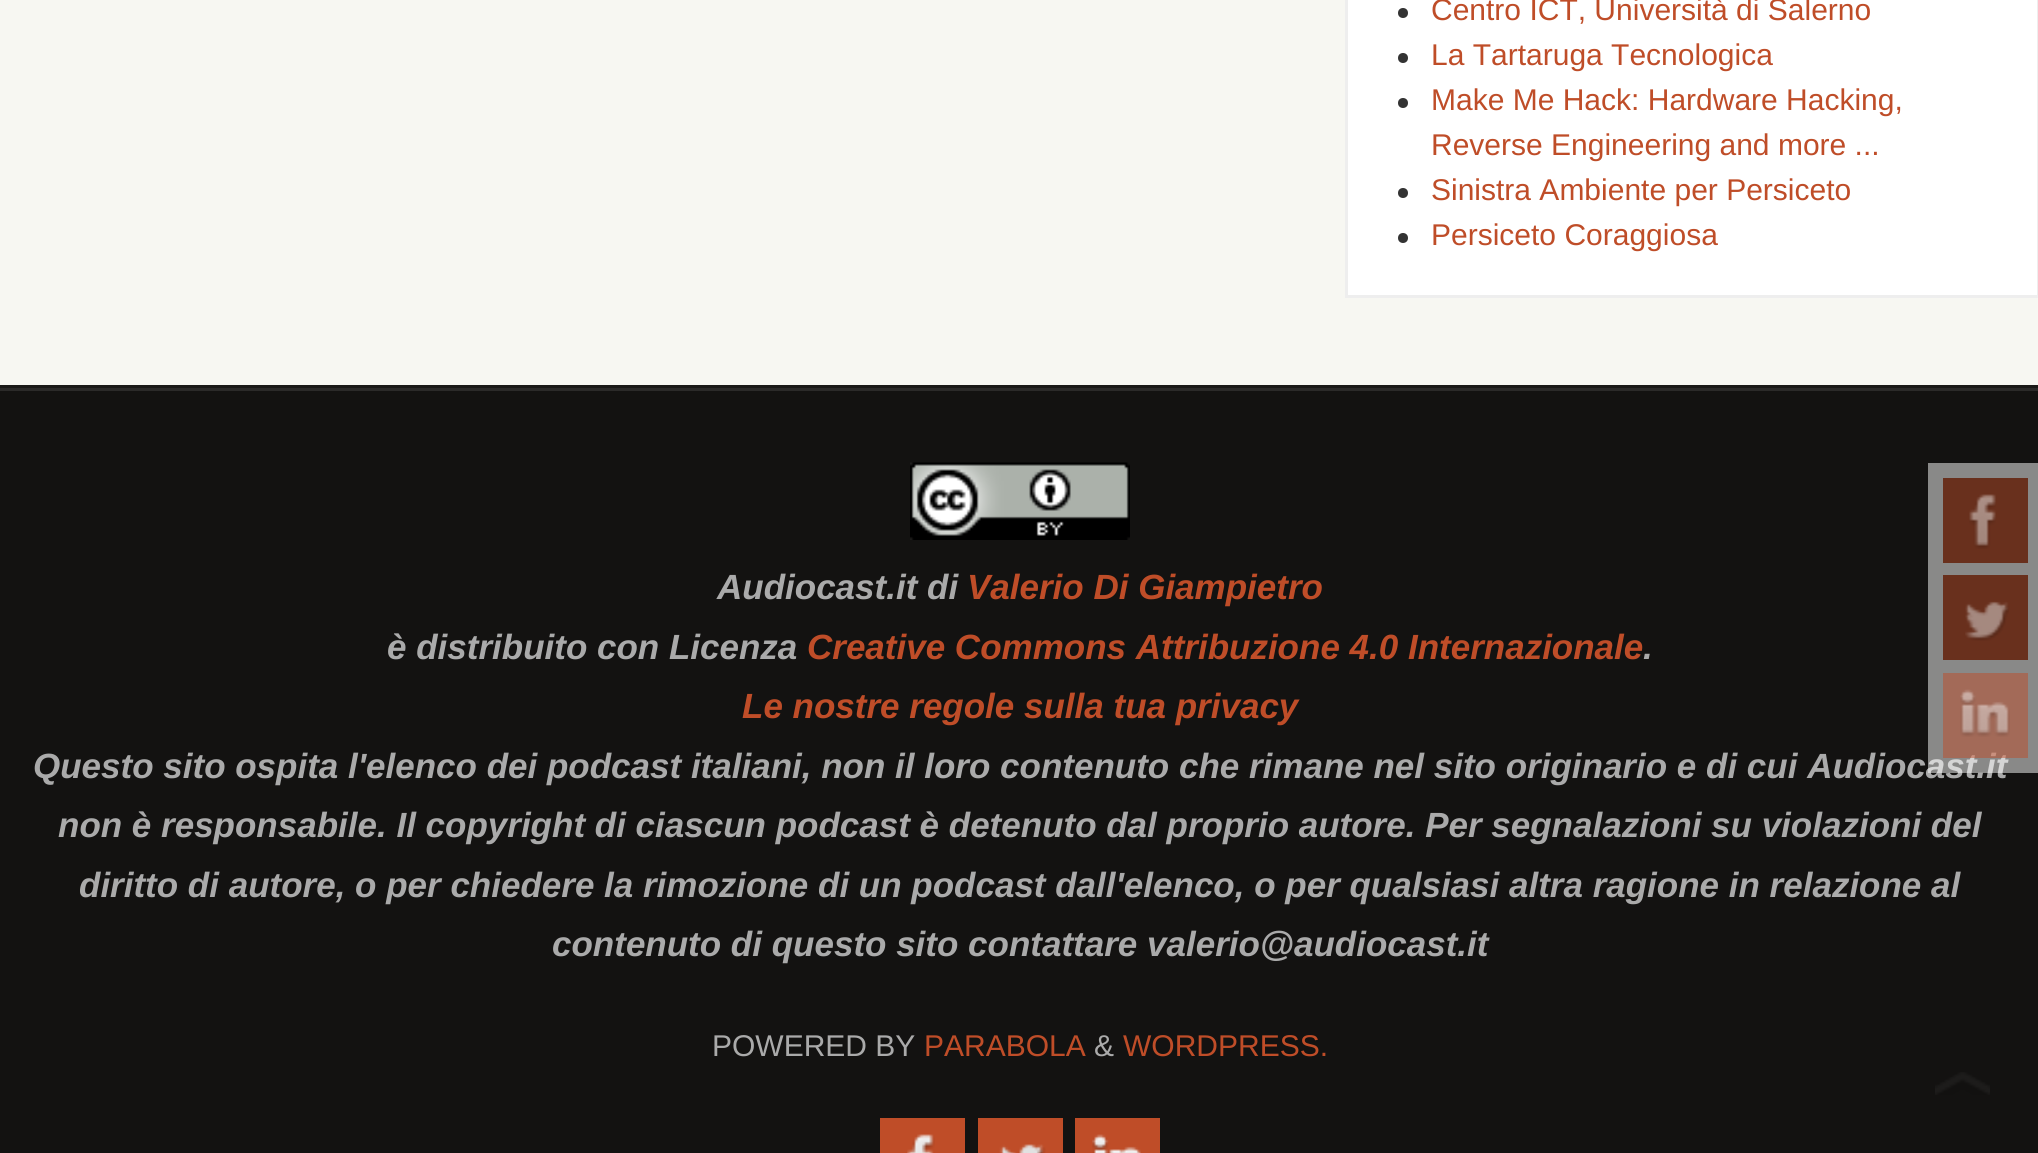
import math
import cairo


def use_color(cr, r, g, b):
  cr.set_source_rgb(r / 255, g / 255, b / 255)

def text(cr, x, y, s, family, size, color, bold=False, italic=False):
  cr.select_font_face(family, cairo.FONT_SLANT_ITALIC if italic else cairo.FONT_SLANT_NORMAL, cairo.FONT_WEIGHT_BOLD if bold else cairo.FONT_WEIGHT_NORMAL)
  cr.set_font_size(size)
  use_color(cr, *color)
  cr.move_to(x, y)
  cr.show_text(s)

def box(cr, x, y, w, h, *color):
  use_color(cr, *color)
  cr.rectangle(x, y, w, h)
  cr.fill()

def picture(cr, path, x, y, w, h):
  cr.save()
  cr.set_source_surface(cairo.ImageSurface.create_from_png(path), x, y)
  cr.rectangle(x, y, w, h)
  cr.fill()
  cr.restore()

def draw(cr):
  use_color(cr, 247, 247, 242)
  cr.paint()
  use_color(cr, 255, 255, 255)
  cr.rectangle(1346.5, -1.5, 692, 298)
  cr.fill_preserve()
  use_color(cr, 238, 238, 238)
  cr.set_line_width(3)
  cr.stroke()
  use_color(cr, 51, 51, 51)
  cr.arc(1403, 13, 5, 0, 2 * math.pi)
  cr.fill()
  cr.arc(1403, 58, 5, 0, 2 * math.pi)
  cr.fill()
  cr.arc(1403, 103, 5, 0, 2 * math.pi)
  cr.fill()
  cr.arc(1403, 193, 5, 0, 2 * math.pi)
  cr.fill()
  cr.arc(1403, 238, 5, 0, 2 * math.pi)
  cr.fill()
  box(cr, 0, 385, 2038, 3, 26, 25, 23)
  box(cr, 0, 391, 2038, 762, 19, 18, 17)
  box(cr, 0, 388, 2038, 3, 43, 42, 41)
  picture(cr, "img_04.png", 910, 462, 220, 78)
  box(cr, 880, 1118, 85, 35, 191, 77, 40)
  picture(cr, "img_05.png", 907, 1134, 28, 19)
  box(cr, 978, 1118, 85, 35, 191, 77, 40)
  picture(cr, "img_06.png", 999, 1144, 47, 9)
  box(cr, 1075, 1118, 85, 35, 191, 77, 40)
  picture(cr, "img_07.png", 1092, 1134, 49, 19)
  picture(cr, "img_08.png", 1935, 1072, 55, 23)
  text(cr, 1431, 20, "Centro ICT, Università di Salerno", "Liberation Sans", 30, (191, 77, 40))
  text(cr, 1431, 65, "La Tartaruga Tecnologica", "Liberation Sans", 30, (191, 77, 40))
  text(cr, 1431, 110, "Make Me Hack: Hardware Hacking,", "Liberation Sans", 30, (191, 77, 40))
  text(cr, 1431, 155, "Reverse Engineering and more ...", "Liberation Sans", 30, (191, 77, 40))
  text(cr, 1431, 200, "Sinistra Ambiente per Persiceto", "Liberation Sans", 30, (191, 77, 40))
  text(cr, 1431, 245, "Persiceto Coraggiosa", "Liberation Sans", 30, (191, 77, 40))
  text(cr, 717, 599, "Audiocast.it di", "Liberation Sans", 35, (170, 170, 170), bold=True, italic=True)
  text(cr, 967, 599, "Valerio Di Giampietro", "Liberation Sans", 35, (191, 77, 40), bold=True, italic=True)
  text(cr, 387, 659, "è distribuito con Licenza", "Liberation Sans", 35, (170, 170, 170), bold=True, italic=True)
  text(cr, 807, 659, "Creative Commons Attribuzione 4.0 Internazionale", "Liberation Sans", 35, (191, 77, 40), bold=True, italic=True)
  text(cr, 1643, 659, ".", "Liberation Sans", 35, (170, 170, 170), bold=True, italic=True)
  text(cr, 742, 718, "Le nostre regole sulla tua privacy", "Liberation Sans", 35, (191, 77, 40), bold=True, italic=True)
  text(cr, 33, 778, "Questo sito ospita l'elenco dei podcast italiani, non il loro contenuto che rimane nel sito originario e di cui Audiocast.it", "Liberation Sans", 35, (170, 170, 170), bold=True, italic=True)
  cr.set_source_rgba(1, 1, 1, 0.5)
  cr.rectangle(1928, 463, 110, 310)
  cr.fill()
  cr.set_source_rgba(0.749, 0.302, 0.157, 0.5)
  cr.rectangle(1943, 673, 85, 85)
  cr.fill()
  picture(cr, "img_03.png", 1960, 689, 50, 48)
  box(cr, 1943, 575, 85, 85, 105, 48, 29)
  picture(cr, "img_02.png", 1965, 601, 44, 40)
  box(cr, 1943, 478, 85, 85, 105, 48, 29)
  picture(cr, "img_01.png", 1969, 494, 27, 55)
  text(cr, 58, 837, "non è responsabile. Il copyright di ciascun podcast è detenuto dal proprio autore. Per segnalazioni su violazioni del", "Liberation Sans", 35, (170, 170, 170), bold=True, italic=True)
  text(cr, 79, 897, "diritto di autore, o per chiedere la rimozione di un podcast dall'elenco, o per qualsiasi altra ragione in relazione al", "Liberation Sans", 35, (170, 170, 170), bold=True, italic=True)
  text(cr, 552, 956, "contenuto di questo sito contattare valerio@audiocast.it", "Liberation Sans", 35, (170, 170, 170), bold=True, italic=True)
  text(cr, 712, 1056, "POWERED BY", "Liberation Sans", 30, (170, 170, 170))
  text(cr, 924, 1056, "PARABOLA", "Liberation Sans", 30, (191, 77, 40))
  text(cr, 1094, 1056, "&", "Liberation Sans", 30, (170, 170, 170))
  text(cr, 1123, 1056, "WORDPRESS.", "Liberation Sans", 30, (191, 77, 40))


surface = cairo.ImageSurface(cairo.FORMAT_RGB24, 2038, 1153)
cr = cairo.Context(surface)
options = cairo.FontOptions()
options.set_hint_metrics(cairo.HINT_METRICS_OFF)
options.set_hint_style(cairo.HINT_STYLE_NONE)
cr.set_font_options(options)
cr.set_miter_limit(4)
draw(cr)
surface.write_to_png("out.png")
